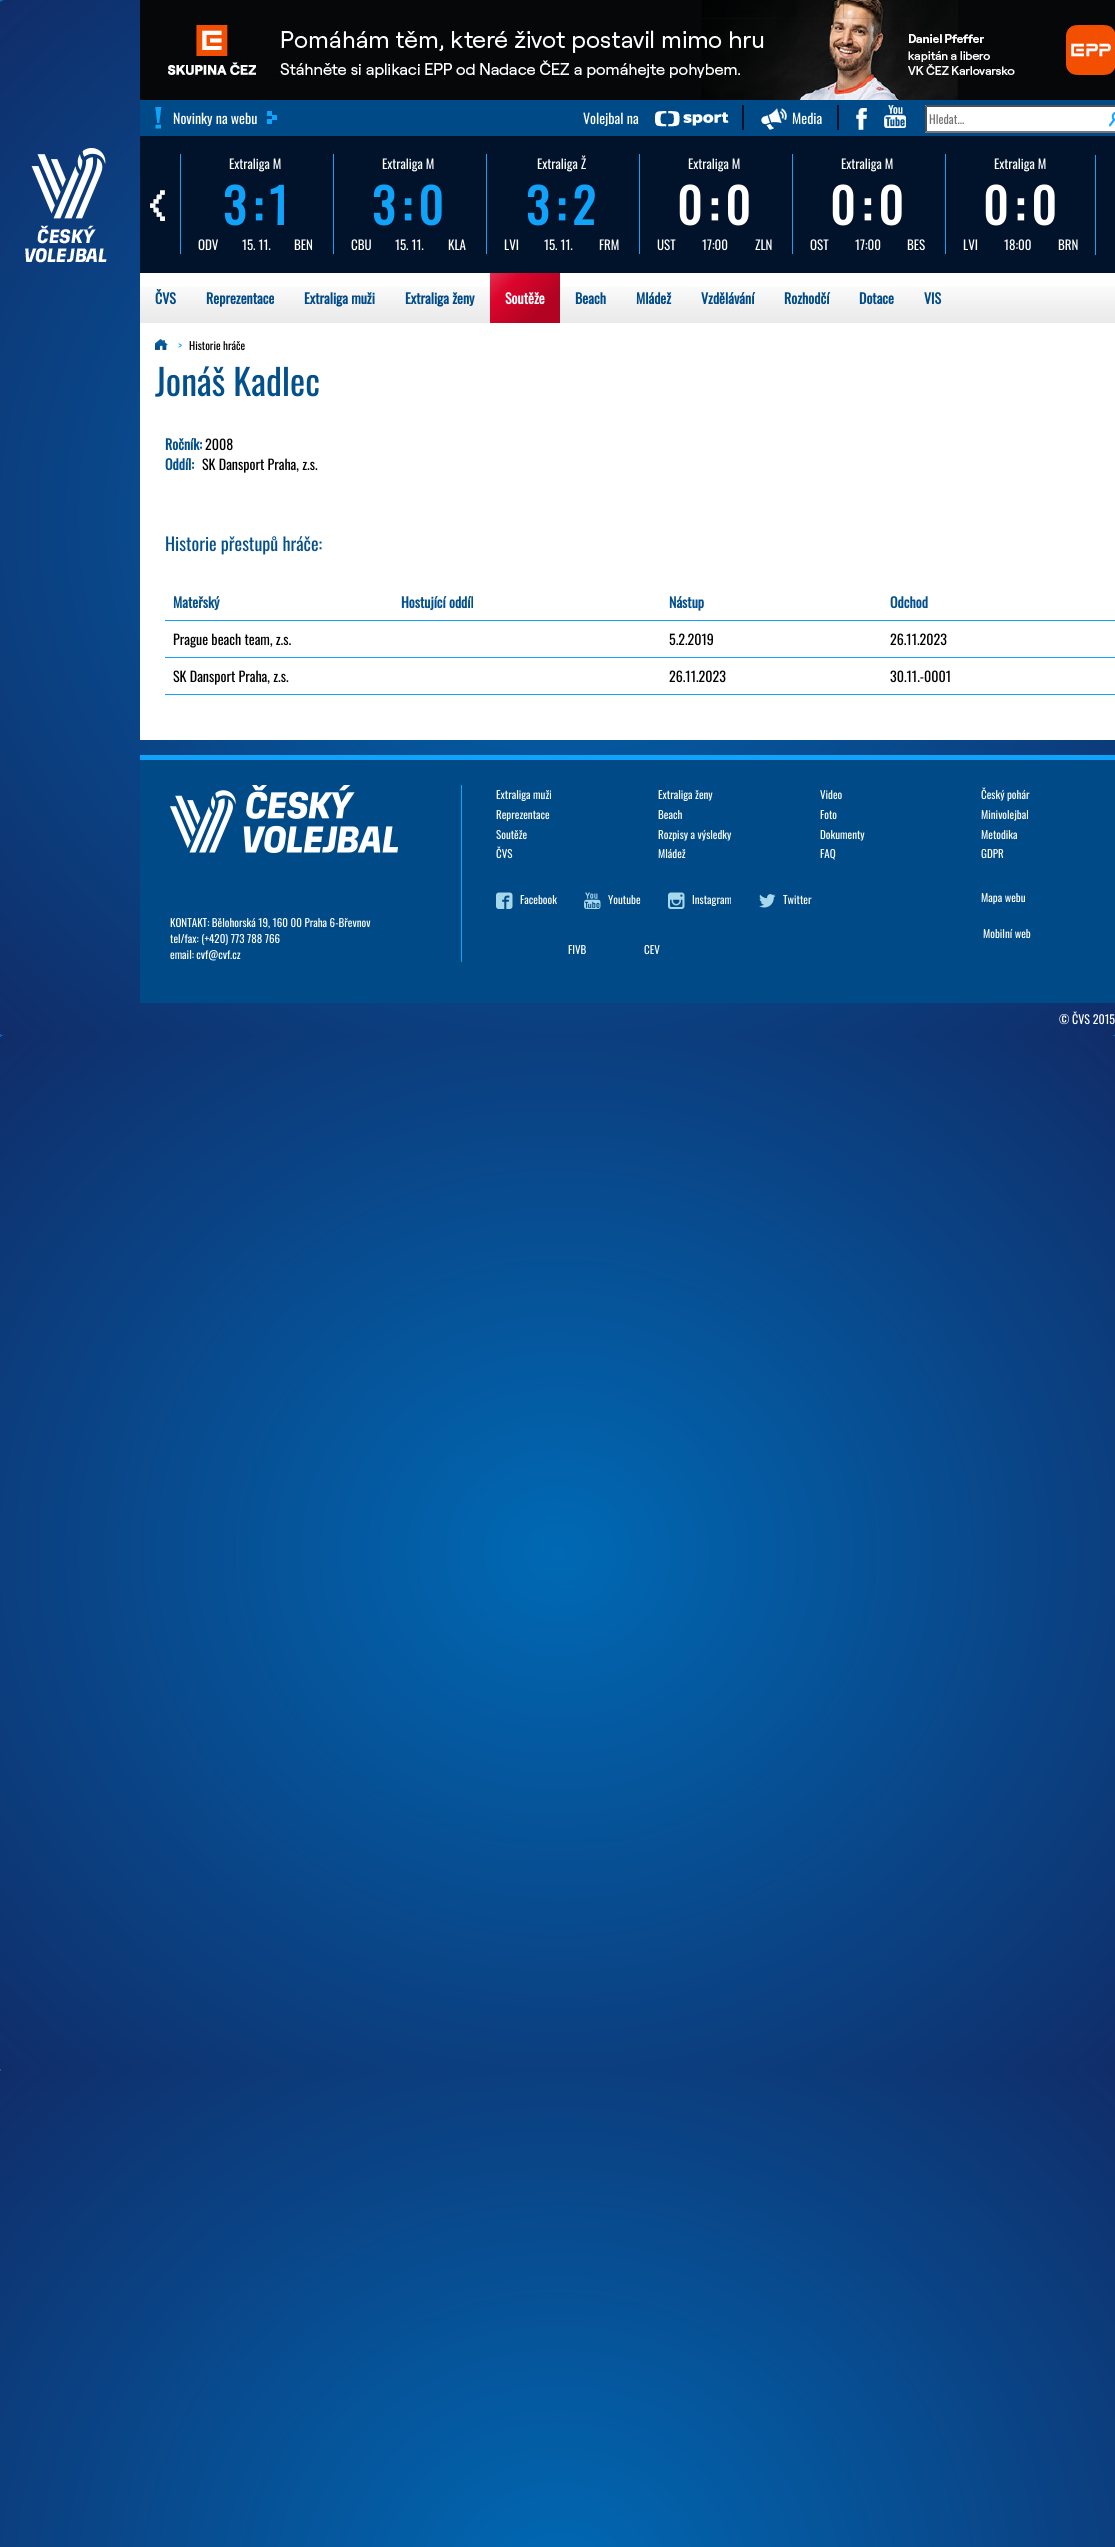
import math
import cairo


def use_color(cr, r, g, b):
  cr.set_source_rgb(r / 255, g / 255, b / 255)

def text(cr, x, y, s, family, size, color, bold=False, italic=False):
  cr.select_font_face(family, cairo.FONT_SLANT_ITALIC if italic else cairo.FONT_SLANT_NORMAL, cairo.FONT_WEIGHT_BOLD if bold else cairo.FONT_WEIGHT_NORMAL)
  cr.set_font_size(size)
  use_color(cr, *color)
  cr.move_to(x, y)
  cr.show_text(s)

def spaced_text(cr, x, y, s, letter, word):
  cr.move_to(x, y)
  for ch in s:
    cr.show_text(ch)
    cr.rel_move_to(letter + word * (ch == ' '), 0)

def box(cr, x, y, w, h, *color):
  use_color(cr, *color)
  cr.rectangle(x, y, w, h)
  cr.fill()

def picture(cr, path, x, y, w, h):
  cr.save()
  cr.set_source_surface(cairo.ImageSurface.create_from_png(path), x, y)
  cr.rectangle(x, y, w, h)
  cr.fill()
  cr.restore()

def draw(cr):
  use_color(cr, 255, 255, 255)
  cr.paint()
  gradient = cairo.RadialGradient(0, 0, 0, 0, 0, 1)
  gradient.set_matrix(cairo.Matrix(1 / 788, 0, 0, 1 / 732, -1 * 558 / 788, -1 * 518 / 732))
  gradient.add_color_stop_rgba(0, 0.063, 0.176, 0.412, 1)
  gradient.add_color_stop_rgba(0, 0, 0.412, 0.706, 1)
  gradient.add_color_stop_rgba(1, 0.063, 0.176, 0.412, 1)
  gradient.add_color_stop_rgba(1, 0, 0.412, 0.706, 1)
  cr.set_source(gradient)
  cr.rectangle(0, 0, 1115, 1035)
  cr.fill()
  gradient = cairo.RadialGradient(0, 0, 0, 0, 0, 1)
  gradient.set_matrix(cairo.Matrix(1 / 788, 0, 0, 1 / 732, -1 * 558 / 788, -1 * 1553 / 732))
  gradient.add_color_stop_rgba(0, 0.063, 0.176, 0.412, 1)
  gradient.add_color_stop_rgba(0, 0, 0.412, 0.706, 1)
  gradient.add_color_stop_rgba(1, 0.063, 0.176, 0.412, 1)
  gradient.add_color_stop_rgba(1, 0, 0.412, 0.706, 1)
  cr.set_source(gradient)
  cr.rectangle(0, 1035, 1115, 1035)
  cr.fill()
  gradient = cairo.RadialGradient(0, 0, 0, 0, 0, 1)
  gradient.set_matrix(cairo.Matrix(1 / 788, 0, 0, 1 / 732, -1 * 558 / 788, -1 * 2588 / 732))
  gradient.add_color_stop_rgba(0, 0.063, 0.176, 0.412, 1)
  gradient.add_color_stop_rgba(0, 0, 0.412, 0.706, 1)
  gradient.add_color_stop_rgba(1, 0.063, 0.176, 0.412, 1)
  gradient.add_color_stop_rgba(1, 0, 0.412, 0.706, 1)
  cr.set_source(gradient)
  cr.rectangle(0, 2070, 1115, 477)
  cr.fill()
  picture(cr, "img_01.png", 140, 0, 975, 100)
  box(cr, 140, 100, 975, 36, 0, 75, 135)
  picture(cr, "img_02.png", 155, 107, 7, 22)
  picture(cr, "img_03.png", 267, 111, 10, 13)
  box(cr, 742, 105, 2, 25, 1, 18, 43)
  picture(cr, "img_04.png", 655, 111, 74, 16)
  picture(cr, "img_05.png", 761, 108, 26, 22)
  box(cr, 837, 105, 2, 25, 1, 18, 43)
  picture(cr, "img_06.png", 856, 108, 11, 22)
  picture(cr, "img_07.png", 884, 105, 22, 23)
  box(cr, 925, 105, 190, 28, 255, 255, 255)
  picture(cr, "img_08.png", 1109, 112, 6, 15)
  use_color(cr, 79, 79, 79)
  cr.new_path()
  cr.move_to(925, 105)
  cr.line_to(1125, 105)
  cr.line_to(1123, 107)
  cr.line_to(927, 107)
  cr.close_path()
  cr.fill()
  use_color(cr, 118, 118, 118)
  cr.new_path()
  cr.move_to(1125, 133)
  cr.line_to(925, 133)
  cr.line_to(927, 131)
  cr.line_to(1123, 131)
  cr.close_path()
  cr.fill()
  use_color(cr, 79, 79, 79)
  cr.new_path()
  cr.move_to(925, 133)
  cr.line_to(925, 105)
  cr.line_to(927, 107)
  cr.line_to(927, 131)
  cr.close_path()
  cr.fill()
  picture(cr, "img_09.png", 25, 148, 82, 115)
  box(cr, 140, 136, 975, 137, 1, 18, 43)
  picture(cr, "img_10.png", 150, 190, 15, 31)
  box(cr, 180, 154, 1, 100, 16, 164, 249)
  box(cr, 333, 154, 1, 100, 16, 164, 249)
  box(cr, 486, 154, 1, 100, 16, 164, 249)
  box(cr, 639, 154, 1, 100, 16, 164, 249)
  box(cr, 792, 154, 1, 100, 16, 164, 249)
  box(cr, 945, 154, 1, 100, 16, 164, 249)
  box(cr, 1095, 155, 1, 100, 16, 164, 249)
  box(cr, 140, 273, 975, 14, 255, 255, 255)
  picture(cr, "img_11.png", 957, 287, 158, 36)
  picture(cr, "img_12.png", 140, 287, 51, 36)
  picture(cr, "img_13.png", 191, 287, 98, 36)
  picture(cr, "img_14.png", 289, 287, 101, 36)
  picture(cr, "img_15.png", 390, 287, 100, 36)
  gradient = cairo.LinearGradient(495, 268, 555, 328)
  gradient.add_color_stop_rgba(0, 0.973, 0.314, 0.196, 1)
  gradient.add_color_stop_rgba(0, 0.89, 0.188, 0.314, 1)
  gradient.add_color_stop_rgba(0.26, 0.867, 0.02, 0.173, 1)
  gradient.add_color_stop_rgba(0.72, 0.702, 0.012, 0.137, 1)
  gradient.add_color_stop_rgba(1, 0.702, 0.012, 0.137, 1)
  cr.set_source(gradient)
  cr.rectangle(490, 273, 70, 50)
  cr.fill()
  picture(cr, "img_16.png", 560, 287, 61, 36)
  picture(cr, "img_17.png", 621, 287, 65, 36)
  picture(cr, "img_18.png", 686, 287, 83, 36)
  picture(cr, "img_19.png", 769, 287, 75, 36)
  picture(cr, "img_17.png", 844, 287, 65, 36)
  picture(cr, "img_20.png", 909, 287, 48, 36)
  box(cr, 140, 323, 975, 417, 255, 255, 255)
  picture(cr, "img_21.png", 155, 339, 13, 11)
  box(cr, 165, 620, 950, 1, 16, 163, 249)
  box(cr, 165, 657, 950, 1, 16, 163, 249)
  box(cr, 165, 694, 950, 1, 16, 163, 249)
  box(cr, 140, 760, 975, 243, 0, 75, 135)
  box(cr, 140, 755, 975, 5, 16, 163, 249)
  box(cr, 461, 785, 1, 177, 16, 163, 249)
  picture(cr, "img_22.png", 170, 785, 228, 68)
  picture(cr, "img_23.png", 496, 892, 17, 17)
  picture(cr, "img_24.png", 584, 892, 17, 17)
  picture(cr, "img_25.png", 668, 892, 17, 17)
  picture(cr, "img_26.png", 759, 894, 17, 14)
  text(cr, 173, 124, "Novinky na webu", "Oswald", 14, (255, 255, 255))
  text(cr, 583, 124, "Volejbal na", "Oswald", 14, (255, 255, 255))
  text(cr, 792, 124, "Media", "Oswald", 14, (255, 255, 255))
  text(cr, 929, 124, "Hledat...", "Oswald", 12, (117, 117, 117))
  text(cr, 229, 169, "Extraliga M", "Oswald", 13, (255, 255, 255))
  cr.select_font_face("Oswald", cairo.FONT_SLANT_NORMAL, cairo.FONT_WEIGHT_BOLD)
  cr.set_font_size(48)
  use_color(cr, 16, 163, 249)
  spaced_text(cr, 223, 225, "3:1", 7, 0)
  text(cr, 198, 250, "ODV", "Oswald", 13, (255, 255, 255))
  text(cr, 242, 250, "15. 11.", "Oswald", 13, (255, 255, 255))
  text(cr, 294, 250, "BEN", "Oswald", 13, (255, 255, 255))
  text(cr, 382, 169, "Extraliga M", "Oswald", 13, (255, 255, 255))
  cr.select_font_face("Oswald", cairo.FONT_SLANT_NORMAL, cairo.FONT_WEIGHT_BOLD)
  cr.set_font_size(48)
  use_color(cr, 16, 163, 249)
  spaced_text(cr, 372, 225, "3:0", 7, 0)
  text(cr, 351, 250, "CBU", "Oswald", 13, (255, 255, 255))
  text(cr, 395, 250, "15. 11.", "Oswald", 13, (255, 255, 255))
  text(cr, 448, 250, "KLA", "Oswald", 13, (255, 255, 255))
  text(cr, 537, 169, "Extraliga Ž", "Oswald", 13, (255, 255, 255))
  cr.select_font_face("Oswald", cairo.FONT_SLANT_NORMAL, cairo.FONT_WEIGHT_BOLD)
  cr.set_font_size(48)
  use_color(cr, 16, 163, 249)
  spaced_text(cr, 526, 225, "3:2", 7, 0)
  text(cr, 504, 250, "LVI", "Oswald", 13, (255, 255, 255))
  text(cr, 544, 250, "15. 11.", "Oswald", 13, (255, 255, 255))
  text(cr, 599, 250, "FRM", "Oswald", 13, (255, 255, 255))
  text(cr, 688, 169, "Extraliga M", "Oswald", 13, (255, 255, 255))
  cr.select_font_face("Oswald", cairo.FONT_SLANT_NORMAL, cairo.FONT_WEIGHT_BOLD)
  cr.set_font_size(48)
  spaced_text(cr, 677, 225, "0:0", 7, 0)
  text(cr, 657, 250, "UST", "Oswald", 13, (255, 255, 255))
  text(cr, 702, 250, "17:00", "Oswald", 13, (255, 255, 255))
  text(cr, 755, 250, "ZLN", "Oswald", 13, (255, 255, 255))
  text(cr, 841, 169, "Extraliga M", "Oswald", 13, (255, 255, 255))
  cr.select_font_face("Oswald", cairo.FONT_SLANT_NORMAL, cairo.FONT_WEIGHT_BOLD)
  cr.set_font_size(48)
  spaced_text(cr, 830, 225, "0:0", 7, 0)
  text(cr, 810, 250, "OST", "Oswald", 13, (255, 255, 255))
  text(cr, 855, 250, "17:00", "Oswald", 13, (255, 255, 255))
  text(cr, 907, 250, "BES", "Oswald", 13, (255, 255, 255))
  text(cr, 994, 169, "Extraliga M", "Oswald", 13, (255, 255, 255))
  cr.select_font_face("Oswald", cairo.FONT_SLANT_NORMAL, cairo.FONT_WEIGHT_BOLD)
  cr.set_font_size(48)
  spaced_text(cr, 983, 225, "0:0", 7, 0)
  text(cr, 963, 250, "LVI", "Oswald", 13, (255, 255, 255))
  text(cr, 1004, 250, "18:00", "Oswald", 13, (255, 255, 255))
  text(cr, 1058, 250, "BRN", "Oswald", 13, (255, 255, 255))
  text(cr, 155, 304, "ČVS", "Oswald", 14, (0, 75, 135), bold=True)
  text(cr, 206, 304, "Reprezentace", "Oswald", 14, (0, 75, 135), bold=True)
  text(cr, 304, 304, "Extraliga muži", "Oswald", 14, (0, 75, 135), bold=True)
  text(cr, 405, 304, "Extraliga ženy", "Oswald", 14, (0, 75, 135), bold=True)
  text(cr, 505, 304, "Soutěže", "Oswald", 14, (255, 255, 255), bold=True)
  text(cr, 575, 304, "Beach", "Oswald", 14, (0, 75, 135), bold=True)
  text(cr, 636, 304, "Mládež", "Oswald", 14, (0, 75, 135), bold=True)
  text(cr, 701, 304, "Vzdělávání", "Oswald", 14, (0, 75, 135), bold=True)
  text(cr, 784, 304, "Rozhodčí", "Oswald", 14, (0, 75, 135), bold=True)
  text(cr, 859, 304, "Dotace", "Oswald", 14, (0, 75, 135), bold=True)
  text(cr, 924, 304, "VIS", "Oswald", 14, (0, 75, 135), bold=True)
  text(cr, 178, 350, ">", "Oswald", 11, (16, 163, 249))
  text(cr, 189, 350, "Historie hráče", "Oswald", 11, (0, 0, 0))
  text(cr, 155, 396, "Jonáš Kadlec", "Oswald", 36, (3, 80, 141))
  text(cr, 165, 450, "Ročník:", "Oswald", 14, (3, 80, 141), bold=True)
  text(cr, 205, 450, "2008", "Oswald", 14, (0, 0, 0))
  text(cr, 165, 470, "Oddíl:", "Oswald", 14, (3, 80, 141), bold=True)
  text(cr, 202, 470, "SK Dansport Praha, z.s.", "Oswald", 14, (0, 0, 0))
  text(cr, 165, 551, "Historie přestupů hráče:", "Oswald", 18, (3, 80, 141))
  text(cr, 173, 608, "Mateřský", "Oswald", 14, (3, 80, 141), bold=True)
  text(cr, 401, 608, "Hostující oddíl", "Oswald", 14, (3, 80, 141), bold=True)
  text(cr, 669, 608, "Nástup", "Oswald", 14, (3, 80, 141), bold=True)
  text(cr, 890, 608, "Odchod", "Oswald", 14, (3, 80, 141), bold=True)
  text(cr, 173, 645, "Prague beach team, z.s.", "Oswald", 14, (0, 0, 0))
  text(cr, 669, 645, "5.2.2019", "Oswald", 14, (0, 0, 0))
  text(cr, 890, 645, "26.11.2023", "Oswald", 14, (0, 0, 0))
  text(cr, 173, 682, "SK Dansport Praha, z.s.", "Oswald", 14, (0, 0, 0))
  text(cr, 669, 682, "26.11.2023", "Oswald", 14, (0, 0, 0))
  text(cr, 890, 682, "30.11.-0001", "Oswald", 14, (0, 0, 0))
  text(cr, 496, 799, "Extraliga muži", "Oswald", 11, (255, 255, 255))
  text(cr, 496, 819, "Reprezentace", "Oswald", 11, (255, 255, 255))
  text(cr, 496, 839, "Soutěže", "Oswald", 11, (255, 255, 255))
  text(cr, 496, 858, "ČVS", "Oswald", 11, (255, 255, 255))
  text(cr, 658, 799, "Extraliga ženy", "Oswald", 11, (255, 255, 255))
  text(cr, 658, 819, "Beach", "Oswald", 11, (255, 255, 255))
  text(cr, 658, 839, "Rozpisy a výsledky", "Oswald", 11, (255, 255, 255))
  text(cr, 658, 858, "Mládež", "Oswald", 11, (255, 255, 255))
  text(cr, 820, 799, "Video", "Oswald", 11, (255, 255, 255))
  text(cr, 820, 819, "Foto", "Oswald", 11, (255, 255, 255))
  text(cr, 820, 839, "Dokumenty", "Oswald", 11, (255, 255, 255))
  text(cr, 820, 858, "FAQ", "Oswald", 11, (255, 255, 255))
  text(cr, 981, 799, "Český pohár", "Oswald", 11, (255, 255, 255))
  text(cr, 981, 819, "Minivolejbal", "Oswald", 11, (255, 255, 255))
  text(cr, 981, 839, "Metodika", "Oswald", 11, (255, 255, 255))
  text(cr, 981, 858, "GDPR", "Oswald", 11, (255, 255, 255))
  text(cr, 170, 927, "KONTAKT: Bělohorská 19, 160 00 Praha 6-Břevnov", "Oswald", 11, (255, 255, 255))
  text(cr, 170, 943, "tel/fax: (+420) 773 788 766", "Oswald", 11, (255, 255, 255))
  text(cr, 170, 959, "email: cvf@cvf.cz", "Oswald", 11, (255, 255, 255))
  text(cr, 520, 904, "Facebook", "Oswald", 11, (255, 255, 255))
  text(cr, 608, 904, "Youtube", "Oswald", 11, (255, 255, 255))
  text(cr, 692, 904, "Instagram", "Oswald", 11, (255, 255, 255))
  text(cr, 783, 904, "Twitter", "Oswald", 11, (255, 255, 255))
  text(cr, 568, 954, "FIVB", "Oswald", 11, (255, 255, 255))
  text(cr, 644, 954, "CEV", "Oswald", 11, (255, 255, 255))
  text(cr, 981, 902, "Mapa webu", "Oswald", 11, (255, 255, 255))
  text(cr, 983, 938, "Mobilní web", "Oswald", 11, (255, 255, 255))
  text(cr, 1059, 1024, "© ČVS 2015", "Oswald", 12, (255, 255, 255))


surface = cairo.ImageSurface(cairo.FORMAT_RGB24, 1115, 2547)
cr = cairo.Context(surface)
options = cairo.FontOptions()
options.set_hint_metrics(cairo.HINT_METRICS_OFF)
options.set_hint_style(cairo.HINT_STYLE_NONE)
cr.set_font_options(options)
cr.set_miter_limit(4)
draw(cr)
surface.write_to_png("out.png")
